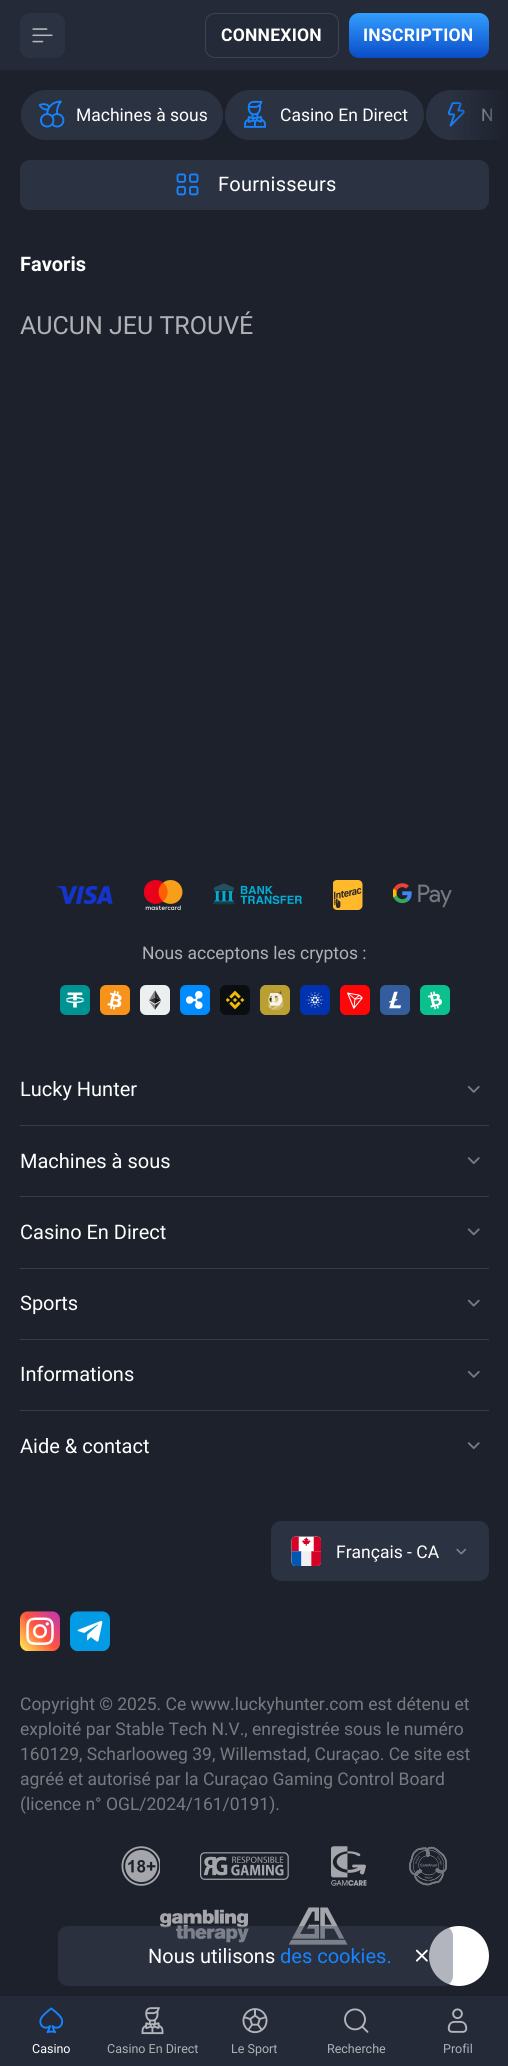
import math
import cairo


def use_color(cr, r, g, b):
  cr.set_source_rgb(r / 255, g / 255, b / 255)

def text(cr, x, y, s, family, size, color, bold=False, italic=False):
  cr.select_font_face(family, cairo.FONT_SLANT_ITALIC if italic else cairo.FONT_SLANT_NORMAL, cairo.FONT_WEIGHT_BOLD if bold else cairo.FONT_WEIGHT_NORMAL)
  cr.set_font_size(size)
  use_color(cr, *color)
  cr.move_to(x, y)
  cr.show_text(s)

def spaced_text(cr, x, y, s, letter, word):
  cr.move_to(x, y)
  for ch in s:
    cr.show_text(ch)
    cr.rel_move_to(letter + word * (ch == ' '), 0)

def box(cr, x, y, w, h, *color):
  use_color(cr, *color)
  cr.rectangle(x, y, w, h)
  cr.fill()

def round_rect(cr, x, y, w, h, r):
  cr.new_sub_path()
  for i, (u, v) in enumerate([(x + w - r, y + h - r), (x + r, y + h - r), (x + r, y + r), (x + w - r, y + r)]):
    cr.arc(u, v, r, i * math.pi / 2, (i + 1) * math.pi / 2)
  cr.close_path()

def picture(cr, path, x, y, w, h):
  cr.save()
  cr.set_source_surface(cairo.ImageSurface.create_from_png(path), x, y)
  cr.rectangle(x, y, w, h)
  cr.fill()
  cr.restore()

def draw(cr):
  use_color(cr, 28, 33, 44)
  cr.paint()
  box(cr, 0, 0, 508, 70, 36, 42, 56)
  use_color(cr, 43, 50, 66)
  round_rect(cr, 20, 13, 45, 45, 10)
  cr.fill()
  picture(cr, "img_01.png", 32, 28, 21, 15)
  round_rect(cr, 205.5, 13.5, 133, 44, 9.5)
  use_color(cr, 62, 68, 80)
  cr.set_line_width(1)
  cr.stroke()
  gradient = cairo.LinearGradient(419, 12, 419, 58)
  gradient.add_color_stop_rgba(0, 0.2, 0.627, 1, 1)
  gradient.add_color_stop_rgba(1, 0.043, 0.298, 0.784, 1)
  cr.set_source(gradient)
  round_rect(cr, 349, 13, 140, 45, 10)
  cr.fill()
  use_color(cr, 43, 50, 66)
  round_rect(cr, 21, 90, 202, 50, 25)
  cr.fill()
  picture(cr, "img_02.png", 38, 100, 27, 28)
  round_rect(cr, 225, 90, 199, 50, 25)
  cr.fill()
  picture(cr, "img_03.png", 244, 100, 22, 28)
  cr.new_path()
  cr.move_to(451, 90)
  cr.line_to(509, 90)
  cr.line_to(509, 140)
  cr.line_to(451, 140)
  cr.curve_to(437, 140, 426, 129, 426, 115)
  cr.curve_to(426, 101, 437, 90, 451, 90)
  cr.close_path()
  cr.fill()
  picture(cr, "img_04.png", 447, 102, 18, 25)
  round_rect(cr, 20, 160, 469, 50, 10)
  cr.fill()
  picture(cr, "img_05.png", 176, 173, 23, 23)
  picture(cr, "img_06.png", 56, 885, 57, 20)
  picture(cr, "img_07.png", 144, 880, 39, 30)
  picture(cr, "img_08.png", 213, 883, 89, 22)
  picture(cr, "img_09.png", 333, 880, 30, 30)
  picture(cr, "img_10.png", 393, 883, 59, 25)
  picture(cr, "img_11.png", 60, 985, 30, 30)
  picture(cr, "img_12.png", 100, 985, 30, 30)
  picture(cr, "img_13.png", 140, 985, 30, 30)
  picture(cr, "img_14.png", 180, 985, 30, 30)
  picture(cr, "img_15.png", 220, 985, 30, 30)
  picture(cr, "img_16.png", 260, 985, 30, 30)
  picture(cr, "img_17.png", 300, 985, 30, 30)
  picture(cr, "img_18.png", 340, 985, 30, 30)
  picture(cr, "img_19.png", 380, 985, 30, 30)
  picture(cr, "img_20.png", 420, 985, 30, 30)
  box(cr, 20, 1125, 469, 1, 55, 60, 69)
  picture(cr, "img_21.png", 467, 1086, 13, 7)
  box(cr, 20, 1196, 469, 1, 55, 60, 69)
  picture(cr, "img_22.png", 467, 1157, 13, 7)
  box(cr, 20, 1268, 469, 1, 55, 60, 69)
  picture(cr, "img_23.png", 467, 1228, 13, 8)
  box(cr, 20, 1339, 469, 1, 55, 60, 69)
  picture(cr, "img_24.png", 467, 1299, 13, 8)
  box(cr, 20, 1410, 469, 1, 55, 60, 69)
  picture(cr, "img_21.png", 467, 1371, 13, 7)
  picture(cr, "img_22.png", 467, 1442, 13, 7)
  use_color(cr, 43, 50, 66)
  round_rect(cr, 271, 1521, 218, 60, 10)
  cr.fill()
  picture(cr, "img_25.png", 291, 1536, 30, 30)
  picture(cr, "img_26.png", 456, 1548, 11, 7)
  picture(cr, "img_27.png", 20, 1611, 40, 40)
  picture(cr, "img_28.png", 70, 1611, 40, 40)
  picture(cr, "img_29.png", 121, 1846, 39, 40)
  picture(cr, "img_30.png", 200, 1852, 89, 28)
  picture(cr, "img_31.png", 331, 1846, 36, 40)
  picture(cr, "img_32.png", 409, 1846, 38, 40)
  picture(cr, "img_33.png", 160, 1909, 89, 34)
  picture(cr, "img_34.png", 289, 1907, 59, 38)
  box(cr, 0, 1996, 508, 70, 36, 42, 56)
  picture(cr, "img_35.png", 39, 2007, 25, 27)
  picture(cr, "img_36.png", 141, 2007, 23, 28)
  picture(cr, "img_37.png", 242, 2008, 26, 26)
  picture(cr, "img_38.png", 344, 2008, 25, 25)
  picture(cr, "img_39.png", 447, 2008, 21, 25)
  use_color(cr, 255, 255, 255)
  cr.arc(459, 1956, 30, 0, 2 * math.pi)
  cr.fill()
  cr.set_source_rgba(0.251, 0.282, 0.361, 0.4)
  round_rect(cr, 58, 1926, 395, 60, 10)
  cr.fill()
  picture(cr, "img_40.png", 415, 1949, 13, 13)
  cr.select_font_face("Roboto", cairo.FONT_SLANT_NORMAL, cairo.FONT_WEIGHT_BOLD)
  cr.set_font_size(17.5)
  use_color(cr, 255, 255, 255)
  spaced_text(cr, 221, 41, "CONNEXION", 0.25, 0)
  spaced_text(cr, 363, 41, "INSCRIPTION", 0.25, 0)
  text(cr, 76, 121, "Machines à sous", "Roboto", 17.5, (255, 255, 255))
  text(cr, 280, 121, "Casino En Direct", "Roboto", 17.5, (255, 255, 255))
  text(cr, 481, 121, "N", "Roboto", 17.5, (255, 255, 255))
  gradient = cairo.LinearGradient(449, 115, 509, 115)
  gradient.add_color_stop_rgba(0, 0.11, 0.129, 0.173, 0)
  gradient.add_color_stop_rgba(1, 0.11, 0.129, 0.173, 1)
  cr.set_source(gradient)
  cr.rectangle(450, 90, 58, 50)
  cr.fill()
  cr.set_font_size(20)
  use_color(cr, 255, 255, 255)
  spaced_text(cr, 218, 191, "Fournisseurs", 0.25, 0)
  text(cr, 20, 271, "Favoris", "Roboto", 20, (255, 255, 255), bold=True)
  text(cr, 20, 334, "AUCUN JEU TROUVÉ", "Roboto", 25, (176, 177, 181))
  text(cr, 142, 959, "Nous acceptons les cryptos :", "Roboto", 17.5, (176, 177, 181))
  text(cr, 20, 1096, "Lucky Hunter", "Roboto", 20, (255, 255, 255))
  text(cr, 20, 1168, "Machines à sous", "Roboto", 20, (255, 255, 255))
  text(cr, 20, 1239, "Casino En Direct", "Roboto", 20, (255, 255, 255))
  text(cr, 20, 1310, "Sports", "Roboto", 20, (255, 255, 255))
  text(cr, 20, 1381, "Informations", "Roboto", 20, (255, 255, 255))
  text(cr, 20, 1453, "Aide & contact", "Roboto", 20, (255, 255, 255))
  text(cr, 336, 1558, "Français - CA", "Roboto", 17.5, (255, 255, 255))
  text(cr, 20, 1710, "Copyright © 2025. Ce www.luckyhunter.com est détenu et", "Roboto", 17.5, (119, 122, 128))
  text(cr, 20, 1735, "exploité par Stable Tech N.V., enregistrée sous le numéro", "Roboto", 17.5, (119, 122, 128))
  text(cr, 20, 1760, "160129, Scharlooweg 39, Willemstad, Curaçao. Ce site est", "Roboto", 17.5, (119, 122, 128))
  text(cr, 20, 1785, "agréé et autorisé par la Curaçao Gaming Control Board", "Roboto", 17.5, (119, 122, 128))
  text(cr, 20, 1810, "(licence n° OGL/2024/161/0191).", "Roboto", 17.5, (119, 122, 128))
  text(cr, 32, 2053, "Casino", "Roboto", 12.5, (255, 255, 255))
  text(cr, 107, 2053, "Casino En Direct", "Roboto", 12.5, (176, 177, 181))
  text(cr, 231, 2053, "Le Sport", "Roboto", 12.5, (176, 177, 181))
  text(cr, 327, 2053, "Recherche", "Roboto", 12.5, (176, 177, 181))
  text(cr, 443, 2053, "Profil", "Roboto", 12.5, (176, 177, 181))
  text(cr, 148, 1963, "Nous utilisons", "Roboto", 20, (255, 255, 255))
  text(cr, 280, 1963, "des cookies.", "Roboto", 20, (22, 131, 255))


surface = cairo.ImageSurface(cairo.FORMAT_RGB24, 508, 2066)
cr = cairo.Context(surface)
options = cairo.FontOptions()
options.set_hint_metrics(cairo.HINT_METRICS_OFF)
options.set_hint_style(cairo.HINT_STYLE_NONE)
cr.set_font_options(options)
cr.set_miter_limit(4)
draw(cr)
surface.write_to_png("out.png")
